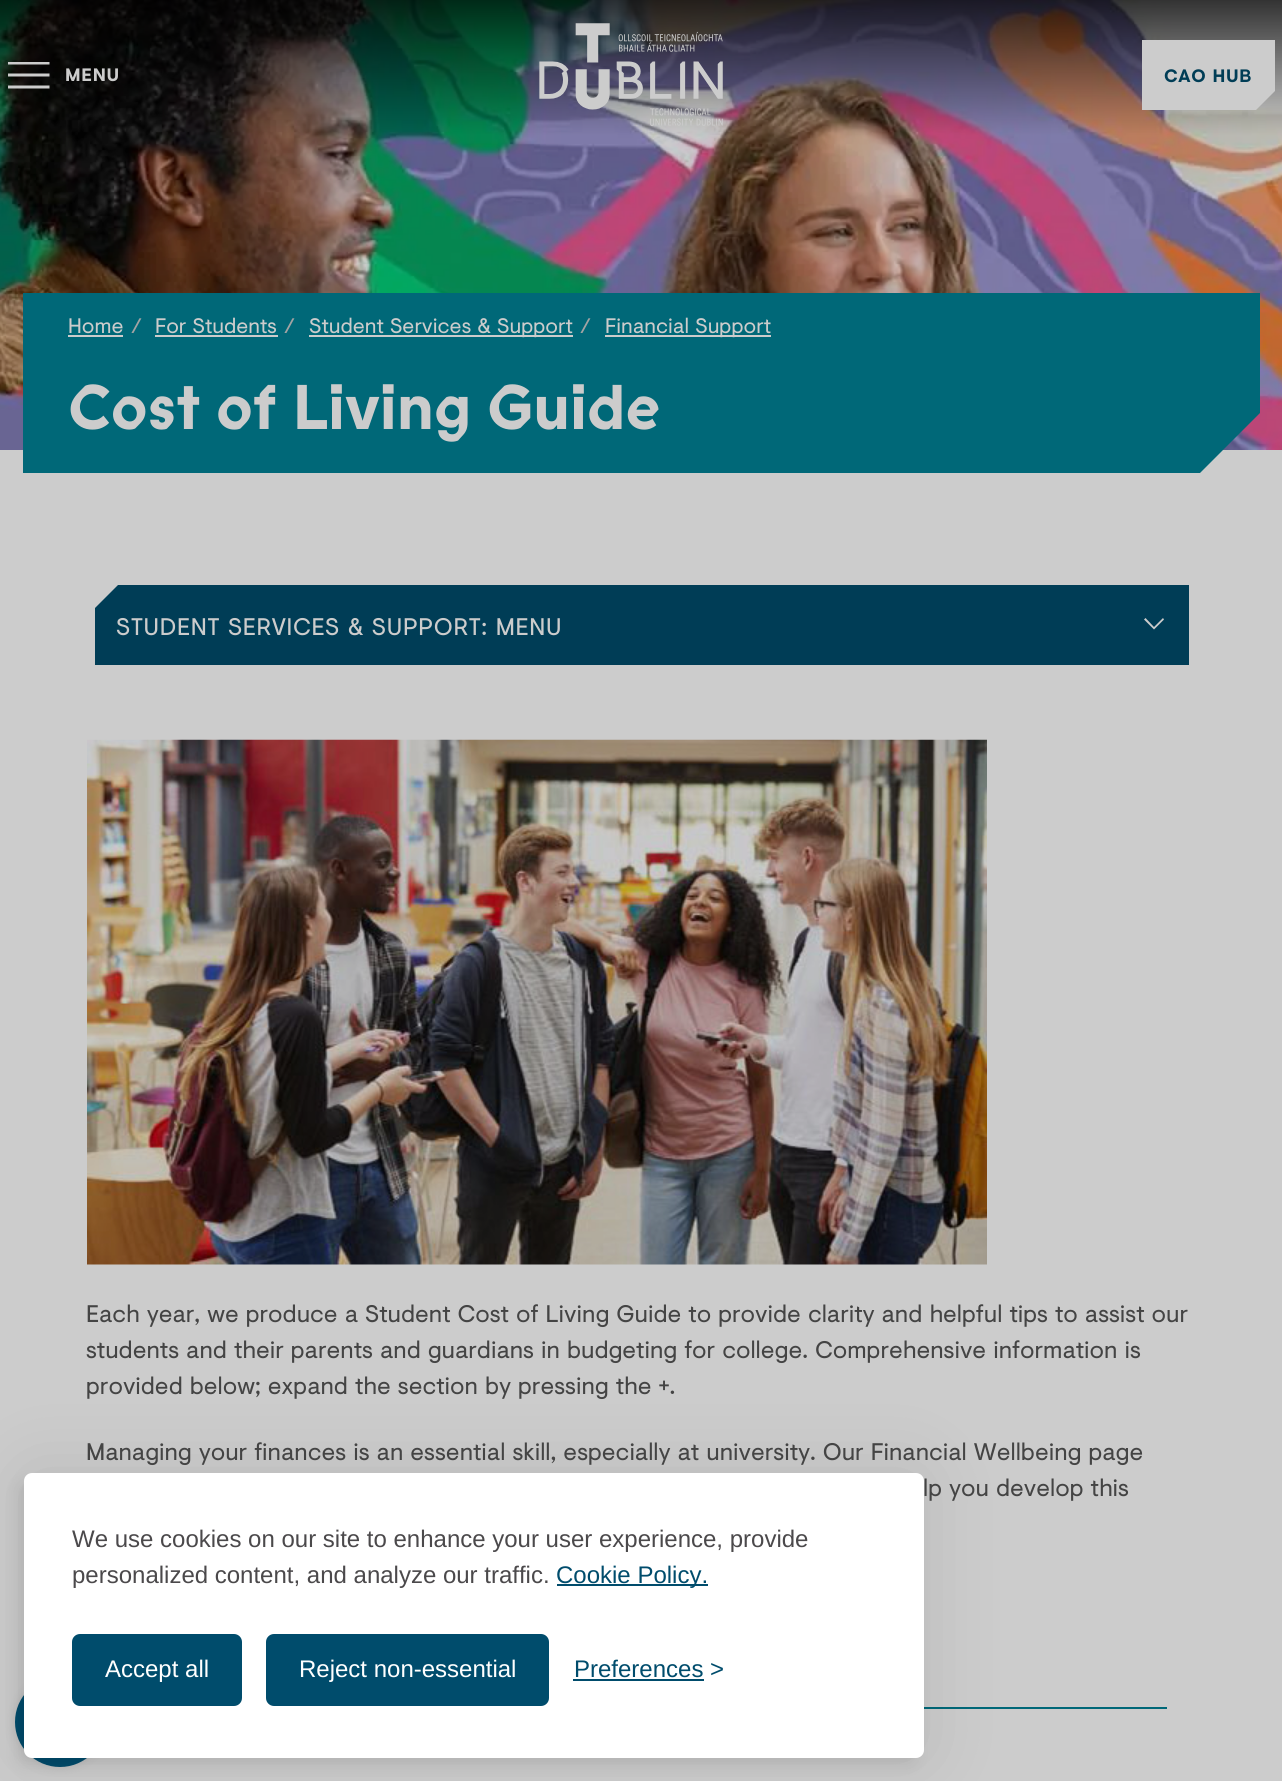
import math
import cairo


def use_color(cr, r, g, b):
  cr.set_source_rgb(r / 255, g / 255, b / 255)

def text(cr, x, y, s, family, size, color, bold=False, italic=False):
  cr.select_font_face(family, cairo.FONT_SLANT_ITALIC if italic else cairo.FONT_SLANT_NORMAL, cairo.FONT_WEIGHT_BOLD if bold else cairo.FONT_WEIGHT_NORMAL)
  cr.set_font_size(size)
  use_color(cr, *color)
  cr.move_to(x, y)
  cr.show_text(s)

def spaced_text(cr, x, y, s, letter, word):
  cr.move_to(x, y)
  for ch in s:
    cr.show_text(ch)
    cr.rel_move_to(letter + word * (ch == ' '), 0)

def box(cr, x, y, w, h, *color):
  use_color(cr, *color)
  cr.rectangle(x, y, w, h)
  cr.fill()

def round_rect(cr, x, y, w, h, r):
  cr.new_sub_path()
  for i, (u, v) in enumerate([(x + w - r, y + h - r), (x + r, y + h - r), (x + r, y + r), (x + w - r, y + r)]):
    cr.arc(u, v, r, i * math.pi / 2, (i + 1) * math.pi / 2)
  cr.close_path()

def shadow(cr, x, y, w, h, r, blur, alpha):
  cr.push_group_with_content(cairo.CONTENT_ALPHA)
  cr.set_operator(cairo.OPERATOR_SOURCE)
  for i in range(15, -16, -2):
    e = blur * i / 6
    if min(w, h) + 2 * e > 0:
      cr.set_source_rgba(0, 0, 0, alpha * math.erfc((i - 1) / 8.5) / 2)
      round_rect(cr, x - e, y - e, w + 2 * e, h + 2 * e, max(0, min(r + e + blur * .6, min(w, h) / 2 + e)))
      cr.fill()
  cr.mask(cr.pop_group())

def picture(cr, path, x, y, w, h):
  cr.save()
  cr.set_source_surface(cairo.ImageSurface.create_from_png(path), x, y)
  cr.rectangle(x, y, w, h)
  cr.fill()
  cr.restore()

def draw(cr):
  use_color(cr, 204, 204, 204)
  cr.paint()
  picture(cr, "img_02.png", 0, 0, 1282, 450)
  cr.save()
  cr.rectangle(8, 62, 42, 27)
  cr.clip()
  cr.new_path()
  cr.move_to(7.5, 63)
  cr.line_to(49.5, 63)
  cr.move_to(7.5, 75)
  cr.line_to(49.5, 75)
  cr.move_to(7.5, 87)
  cr.line_to(49.5, 87)
  use_color(cr, 204, 204, 204)
  cr.set_line_width(3)
  cr.stroke()
  cr.restore()
  picture(cr, "img_01.png", 539, 23, 184, 103)
  use_color(cr, 204, 204, 204)
  cr.new_path()
  cr.move_to(1256, 110)
  cr.line_to(1142, 110)
  cr.line_to(1142, 40)
  cr.line_to(1275, 40)
  cr.line_to(1275, 91)
  cr.close_path()
  cr.fill()
  use_color(cr, 0, 104, 120)
  cr.new_path()
  cr.move_to(23, 293)
  cr.line_to(23, 473)
  cr.line_to(1200, 473)
  cr.line_to(1260, 413)
  cr.line_to(1260, 293)
  cr.close_path()
  cr.fill()
  box(cr, 68, 335, 55, 2, 204, 204, 204)
  box(cr, 155, 335, 123, 2, 204, 204, 204)
  box(cr, 309, 335, 264, 2, 204, 204, 204)
  box(cr, 605, 335, 166, 2, 204, 204, 204)
  use_color(cr, 0, 61, 86)
  cr.new_path()
  cr.move_to(118, 585)
  cr.line_to(1189, 585)
  cr.line_to(1189, 665)
  cr.line_to(95, 665)
  cr.line_to(95, 608)
  cr.close_path()
  cr.fill()
  use_color(cr, 204, 204, 204)
  cr.new_path()
  cr.move_to(1164, 619.5)
  cr.line_to(1154, 629.5)
  cr.line_to(1144, 619.5)
  cr.line_to(1145.5, 618)
  cr.line_to(1154, 627)
  cr.line_to(1163, 618)
  cr.close_path()
  cr.fill()
  picture(cr, "img_03.png", 87, 739, 900, 526)
  box(cr, 924, 1707, 243, 2, 0, 104, 120)
  use_color(cr, 0, 0, 0)
  shadow(cr, 15, 1677, 90, 90, 45, 4.5, 0.1)
  use_color(cr, 0, 76, 108)
  cr.arc(60, 1722, 45, 0, 2 * math.pi)
  cr.fill()
  use_color(cr, 0, 0, 0)
  shadow(cr, 24, 1473, 900, 285, 8, 37.5, 0.1)
  shadow(cr, 17, 1481, 900, 285, 8, 7.5, 0.07)
  use_color(cr, 255, 255, 255)
  round_rect(cr, 24, 1473, 900, 285, 8)
  cr.fill()
  box(cr, 557, 1584, 151, 2, 0, 76, 108)
  round_rect(cr, 73.5, 1635.5, 167, 69, 6.5)
  cr.fill_preserve()
  cr.set_line_width(3)
  cr.stroke()
  round_rect(cr, 267.5, 1635.5, 280, 69, 6.5)
  cr.fill_preserve()
  cr.stroke()
  box(cr, 573, 1679, 131, 2, 0, 76, 108)
  cr.select_font_face("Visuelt", cairo.FONT_SLANT_NORMAL, cairo.FONT_WEIGHT_BOLD)
  cr.set_font_size(18)
  use_color(cr, 204, 204, 204)
  spaced_text(cr, 65, 81, "MENU", 0.75, 0)
  use_color(cr, 0, 61, 86)
  spaced_text(cr, 1164, 82, "CAO HUB", 0.75, 0)
  text(cr, 68, 333, "Home", "Visuelt", 21, (204, 204, 204))
  text(cr, 131, 333, "/", "Visuelt", 21, (163, 163, 163))
  text(cr, 155, 333, "For Students", "Visuelt", 21, (204, 204, 204))
  text(cr, 284, 333, "/", "Visuelt", 21, (163, 163, 163))
  text(cr, 309, 333, "Student Services & Support", "Visuelt", 21, (204, 204, 204))
  text(cr, 580, 333, "/", "Visuelt", 21, (163, 163, 163))
  text(cr, 605, 333, "Financial Support", "Visuelt", 21, (204, 204, 204))
  text(cr, 68, 429, "Cost of Living Guide", "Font", 63, (204, 204, 204), bold=True)
  cr.select_font_face("Visuelt")
  cr.set_font_size(24)
  spaced_text(cr, 116, 635, "STUDENT SERVICES & SUPPORT: MENU", 0.75, 0)
  text(cr, 86, 1322, "Each year, we produce a Student Cost of Living Guide to provide clarity and helpful tips to assist our", "Visuelt", 24, (68, 68, 68))
  text(cr, 86, 1358, "students and their parents and guardians in budgeting for college. Comprehensive information is", "Visuelt", 24, (68, 68, 68))
  text(cr, 86, 1394, "provided below; expand the section by pressing the +.", "Visuelt", 24, (68, 68, 68))
  text(cr, 86, 1460, "Managing your finances is an essential skill, especially at university. Our Financial Wellbeing page", "Visuelt", 24, (68, 68, 68))
  text(cr, 923, 1496, "lp you develop this", "Visuelt", 24, (68, 68, 68))
  text(cr, 72, 1547, "We use cookies on our site to enhance your user experience, provide", "Liberation Sans", 24, (75, 73, 75))
  text(cr, 72, 1583, "personalized content, and analyze our traffic.", "Liberation Sans", 24, (75, 73, 75))
  text(cr, 556, 1583, "Cookie Policy.", "Liberation Sans", 24, (0, 76, 108))
  text(cr, 105, 1677, "Accept all", "Liberation Sans", 24, (255, 255, 255))
  text(cr, 299, 1677, "Reject non-essential", "Liberation Sans", 24, (255, 255, 255))
  text(cr, 574, 1677, "Preferences", "Liberation Sans", 24, (0, 76, 108))
  text(cr, 710, 1677, ">", "Liberation Sans", 24, (0, 76, 108))


surface = cairo.ImageSurface(cairo.FORMAT_RGB24, 1282, 1781)
cr = cairo.Context(surface)
options = cairo.FontOptions()
options.set_hint_metrics(cairo.HINT_METRICS_OFF)
options.set_hint_style(cairo.HINT_STYLE_NONE)
cr.set_font_options(options)
cr.set_miter_limit(4)
draw(cr)
surface.write_to_png("out.png")
